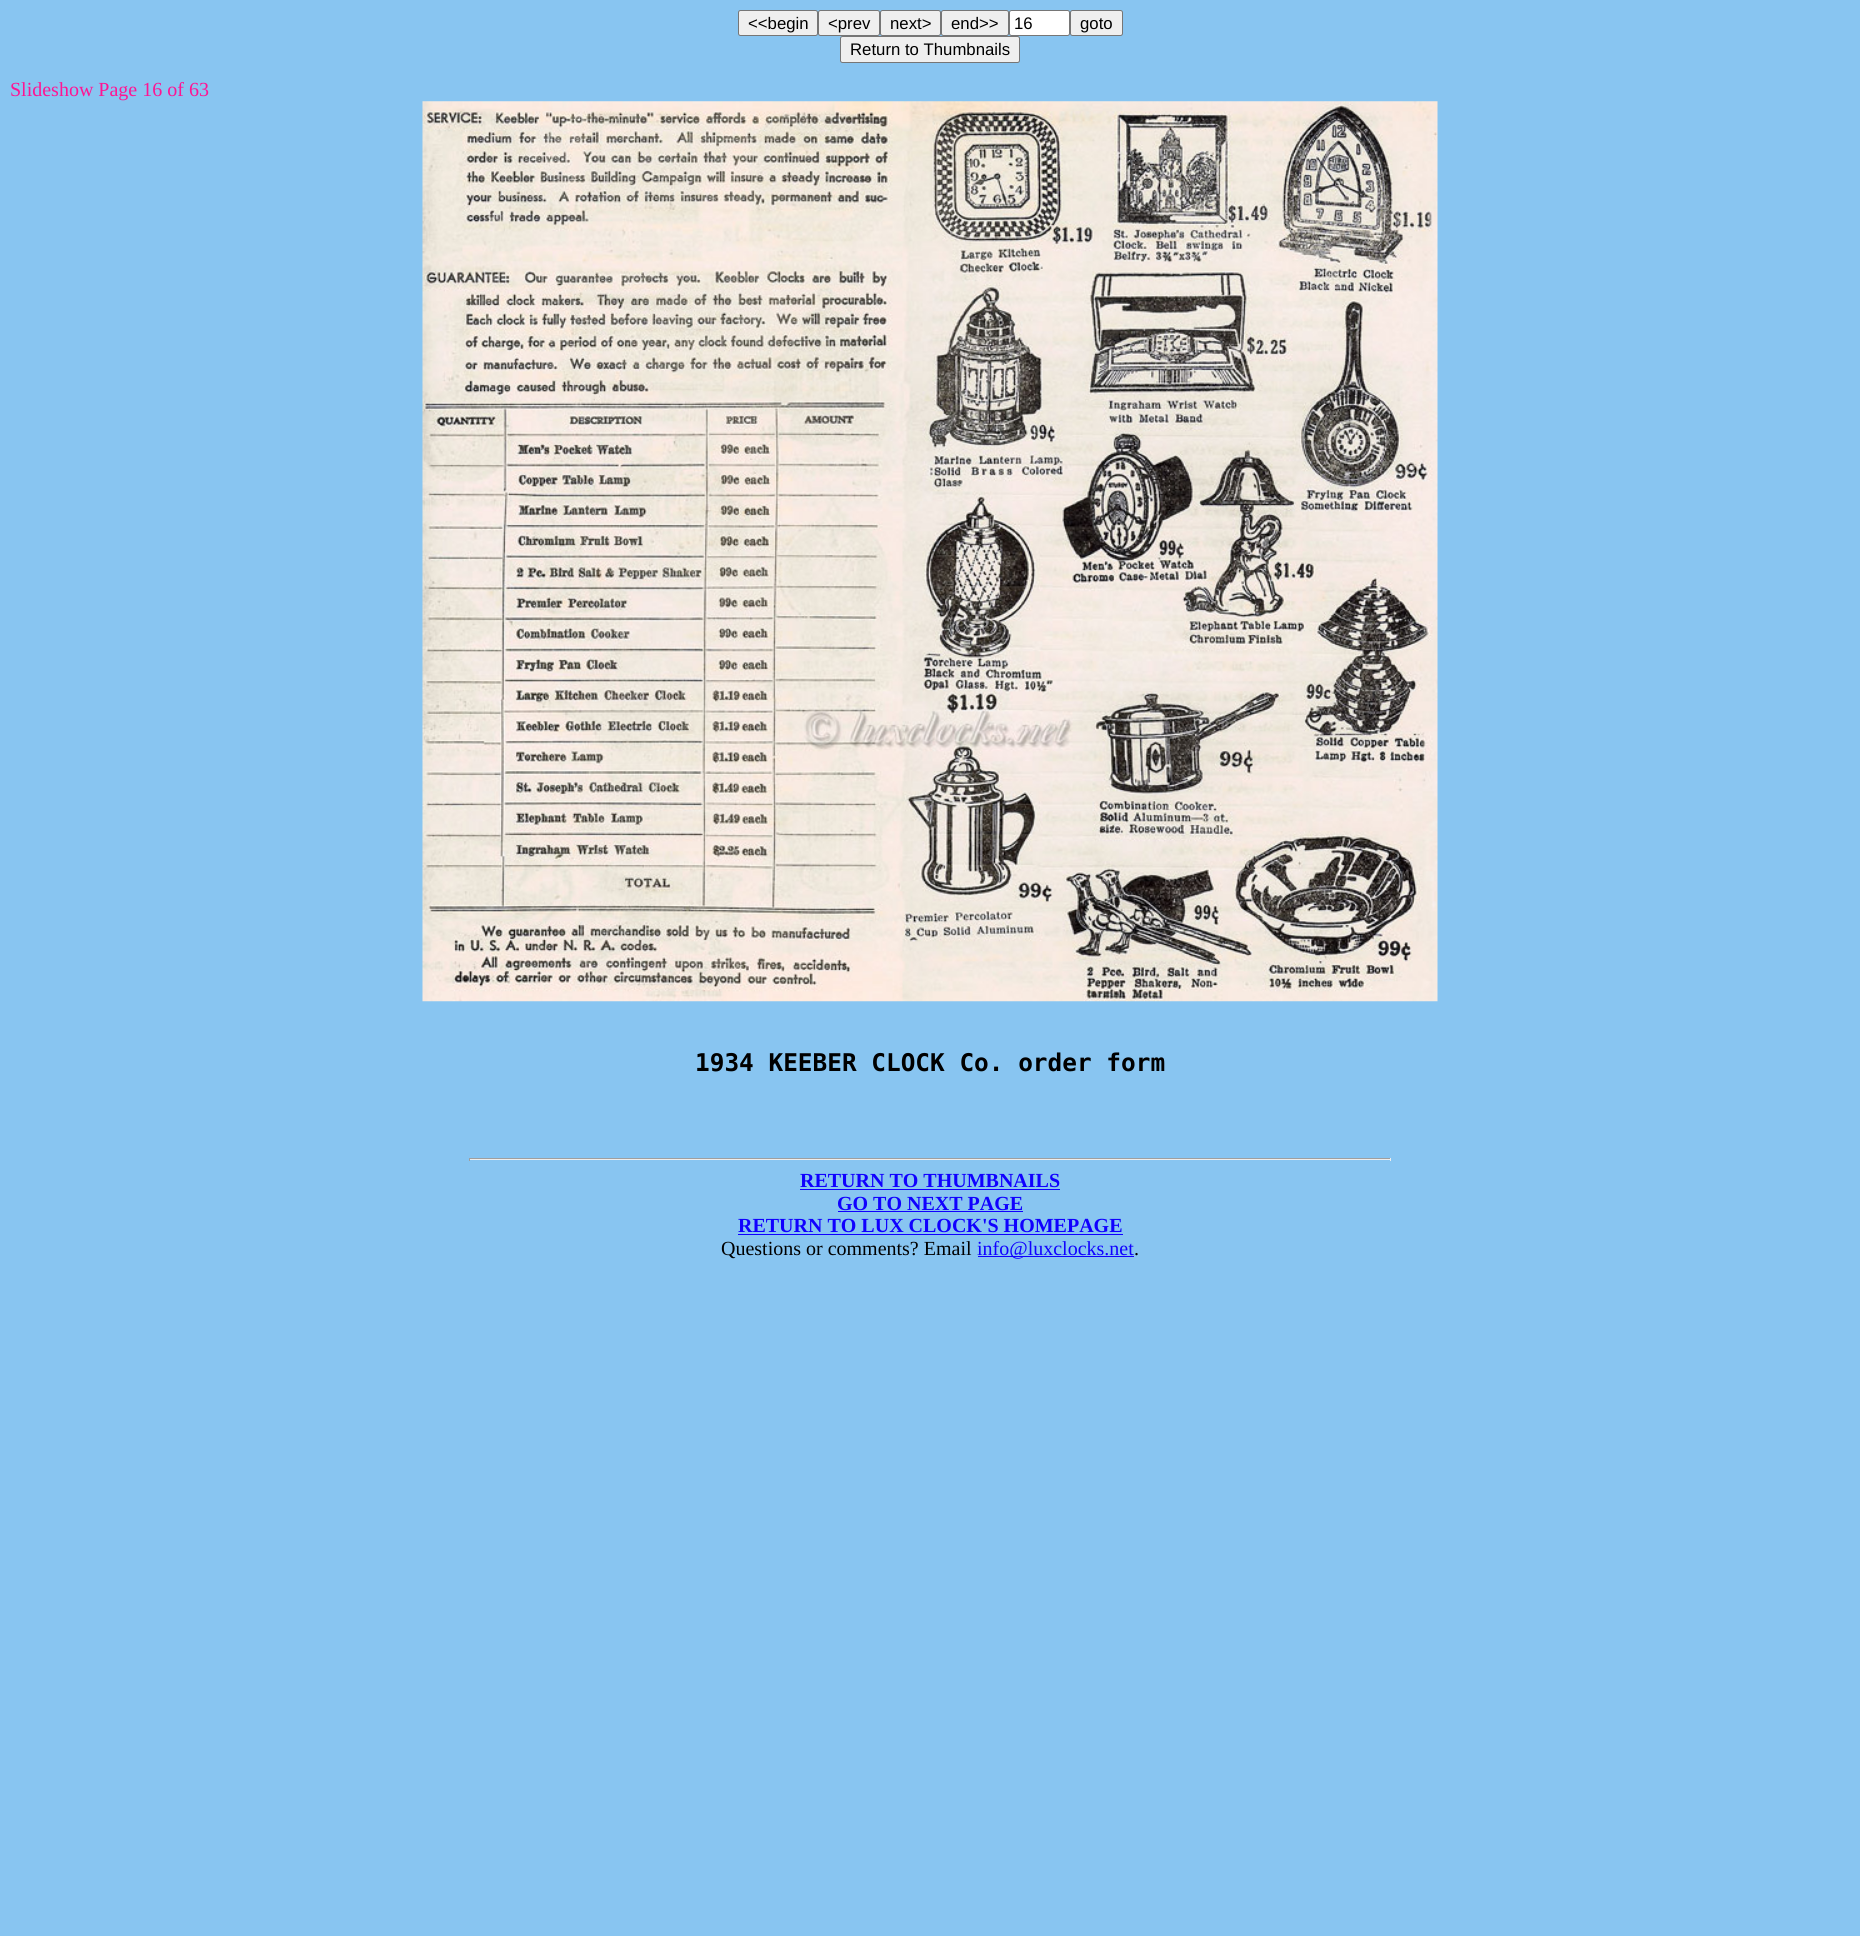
import math
import cairo


def use_color(cr, r, g, b):
  cr.set_source_rgb(r / 255, g / 255, b / 255)

def text(cr, x, y, s, family, size, color, bold=False, italic=False):
  cr.select_font_face(family, cairo.FONT_SLANT_ITALIC if italic else cairo.FONT_SLANT_NORMAL, cairo.FONT_WEIGHT_BOLD if bold else cairo.FONT_WEIGHT_NORMAL)
  cr.set_font_size(size)
  use_color(cr, *color)
  cr.move_to(x, y)
  cr.show_text(s)

def box(cr, x, y, w, h, *color):
  use_color(cr, *color)
  cr.rectangle(x, y, w, h)
  cr.fill()

def round_rect(cr, x, y, w, h, r):
  cr.new_sub_path()
  for i, (u, v) in enumerate([(x + w - r, y + h - r), (x + r, y + h - r), (x + r, y + r), (x + w - r, y + r)]):
    cr.arc(u, v, r, i * math.pi / 2, (i + 1) * math.pi / 2)
  cr.close_path()

def picture(cr, path, x, y, w, h):
  cr.save()
  cr.set_source_surface(cairo.ImageSurface.create_from_png(path), x, y)
  cr.rectangle(x, y, w, h)
  cr.fill()
  cr.restore()

def draw(cr):
  use_color(cr, 136, 197, 241)
  cr.paint()
  use_color(cr, 239, 239, 239)
  round_rect(cr, 738.5, 10.5, 79, 25, 2)
  cr.fill_preserve()
  use_color(cr, 118, 118, 118)
  cr.set_line_width(1)
  cr.stroke()
  use_color(cr, 239, 239, 239)
  round_rect(cr, 818.5, 10.5, 61, 25, 2)
  cr.fill_preserve()
  use_color(cr, 118, 118, 118)
  cr.stroke()
  use_color(cr, 239, 239, 239)
  round_rect(cr, 880.5, 10.5, 60, 25, 2)
  cr.fill_preserve()
  use_color(cr, 118, 118, 118)
  cr.stroke()
  use_color(cr, 239, 239, 239)
  round_rect(cr, 941.5, 10.5, 67, 25, 2)
  cr.fill_preserve()
  use_color(cr, 118, 118, 118)
  cr.stroke()
  use_color(cr, 255, 255, 255)
  round_rect(cr, 1009.5, 10.5, 60, 25, 2)
  cr.fill_preserve()
  use_color(cr, 118, 118, 118)
  cr.stroke()
  use_color(cr, 239, 239, 239)
  round_rect(cr, 1070.5, 10.5, 52, 25, 2)
  cr.fill_preserve()
  use_color(cr, 118, 118, 118)
  cr.stroke()
  use_color(cr, 239, 239, 239)
  round_rect(cr, 840.5, 36.5, 179, 26, 2)
  cr.fill_preserve()
  use_color(cr, 118, 118, 118)
  cr.stroke()
  picture(cr, "img_01.png", 422, 101, 1016, 901)
  box(cr, 469, 1158, 922, 1, 159, 159, 159)
  box(cr, 1390, 1158, 1, 3, 238, 238, 238)
  box(cr, 469, 1159, 922, 1, 238, 238, 238)
  box(cr, 469, 1158, 1, 3, 159, 159, 159)
  box(cr, 800, 1189, 260, 1, 16, 0, 255)
  box(cr, 838, 1211, 185, 1, 16, 0, 255)
  box(cr, 738, 1234, 385, 1, 16, 0, 255)
  box(cr, 978, 1256, 156, 1, 16, 0, 255)
  text(cr, 748, 29, "<<begin", "Liberation Sans", 16.75, (0, 0, 0))
  text(cr, 828, 29, "<prev", "Liberation Sans", 16.75, (0, 0, 0))
  text(cr, 890, 29, "next>", "Liberation Sans", 16.75, (0, 0, 0))
  text(cr, 951, 29, "end>>", "Liberation Sans", 16.75, (0, 0, 0))
  text(cr, 1014, 29, "16", "Liberation Sans", 16.75, (0, 0, 0))
  text(cr, 1080, 29, "goto", "Liberation Sans", 16.75, (0, 0, 0))
  text(cr, 850, 55, "Return to Thumbnails", "Liberation Sans", 16.75, (0, 0, 0))
  text(cr, 10, 96, "Slideshow Page 16 of 63", "Liberation Serif", 20, (255, 20, 147))
  text(cr, 695, 1071, "1934 KEEBER CLOCK Co. order form", "DejaVu Sans Mono", 24.4, (0, 0, 0), bold=True)
  text(cr, 800, 1187, "RETURN TO THUMBNAILS", "Liberation Serif", 20, (16, 0, 255), bold=True)
  text(cr, 837, 1210, "GO TO NEXT PAGE", "Liberation Serif", 20, (16, 0, 255), bold=True)
  text(cr, 738, 1232, "RETURN TO LUX CLOCK'S HOMEPAGE", "Liberation Serif", 20, (16, 0, 255), bold=True)
  text(cr, 721, 1255, "Questions or comments? Email", "Liberation Serif", 20, (0, 0, 0))
  text(cr, 977, 1255, "info@luxclocks.net", "Liberation Serif", 20, (16, 0, 255))
  text(cr, 1134, 1255, ".", "Liberation Serif", 20, (0, 0, 0))


surface = cairo.ImageSurface(cairo.FORMAT_RGB24, 1860, 1936)
cr = cairo.Context(surface)
options = cairo.FontOptions()
options.set_hint_metrics(cairo.HINT_METRICS_OFF)
options.set_hint_style(cairo.HINT_STYLE_NONE)
cr.set_font_options(options)
cr.set_miter_limit(4)
draw(cr)
surface.write_to_png("out.png")
